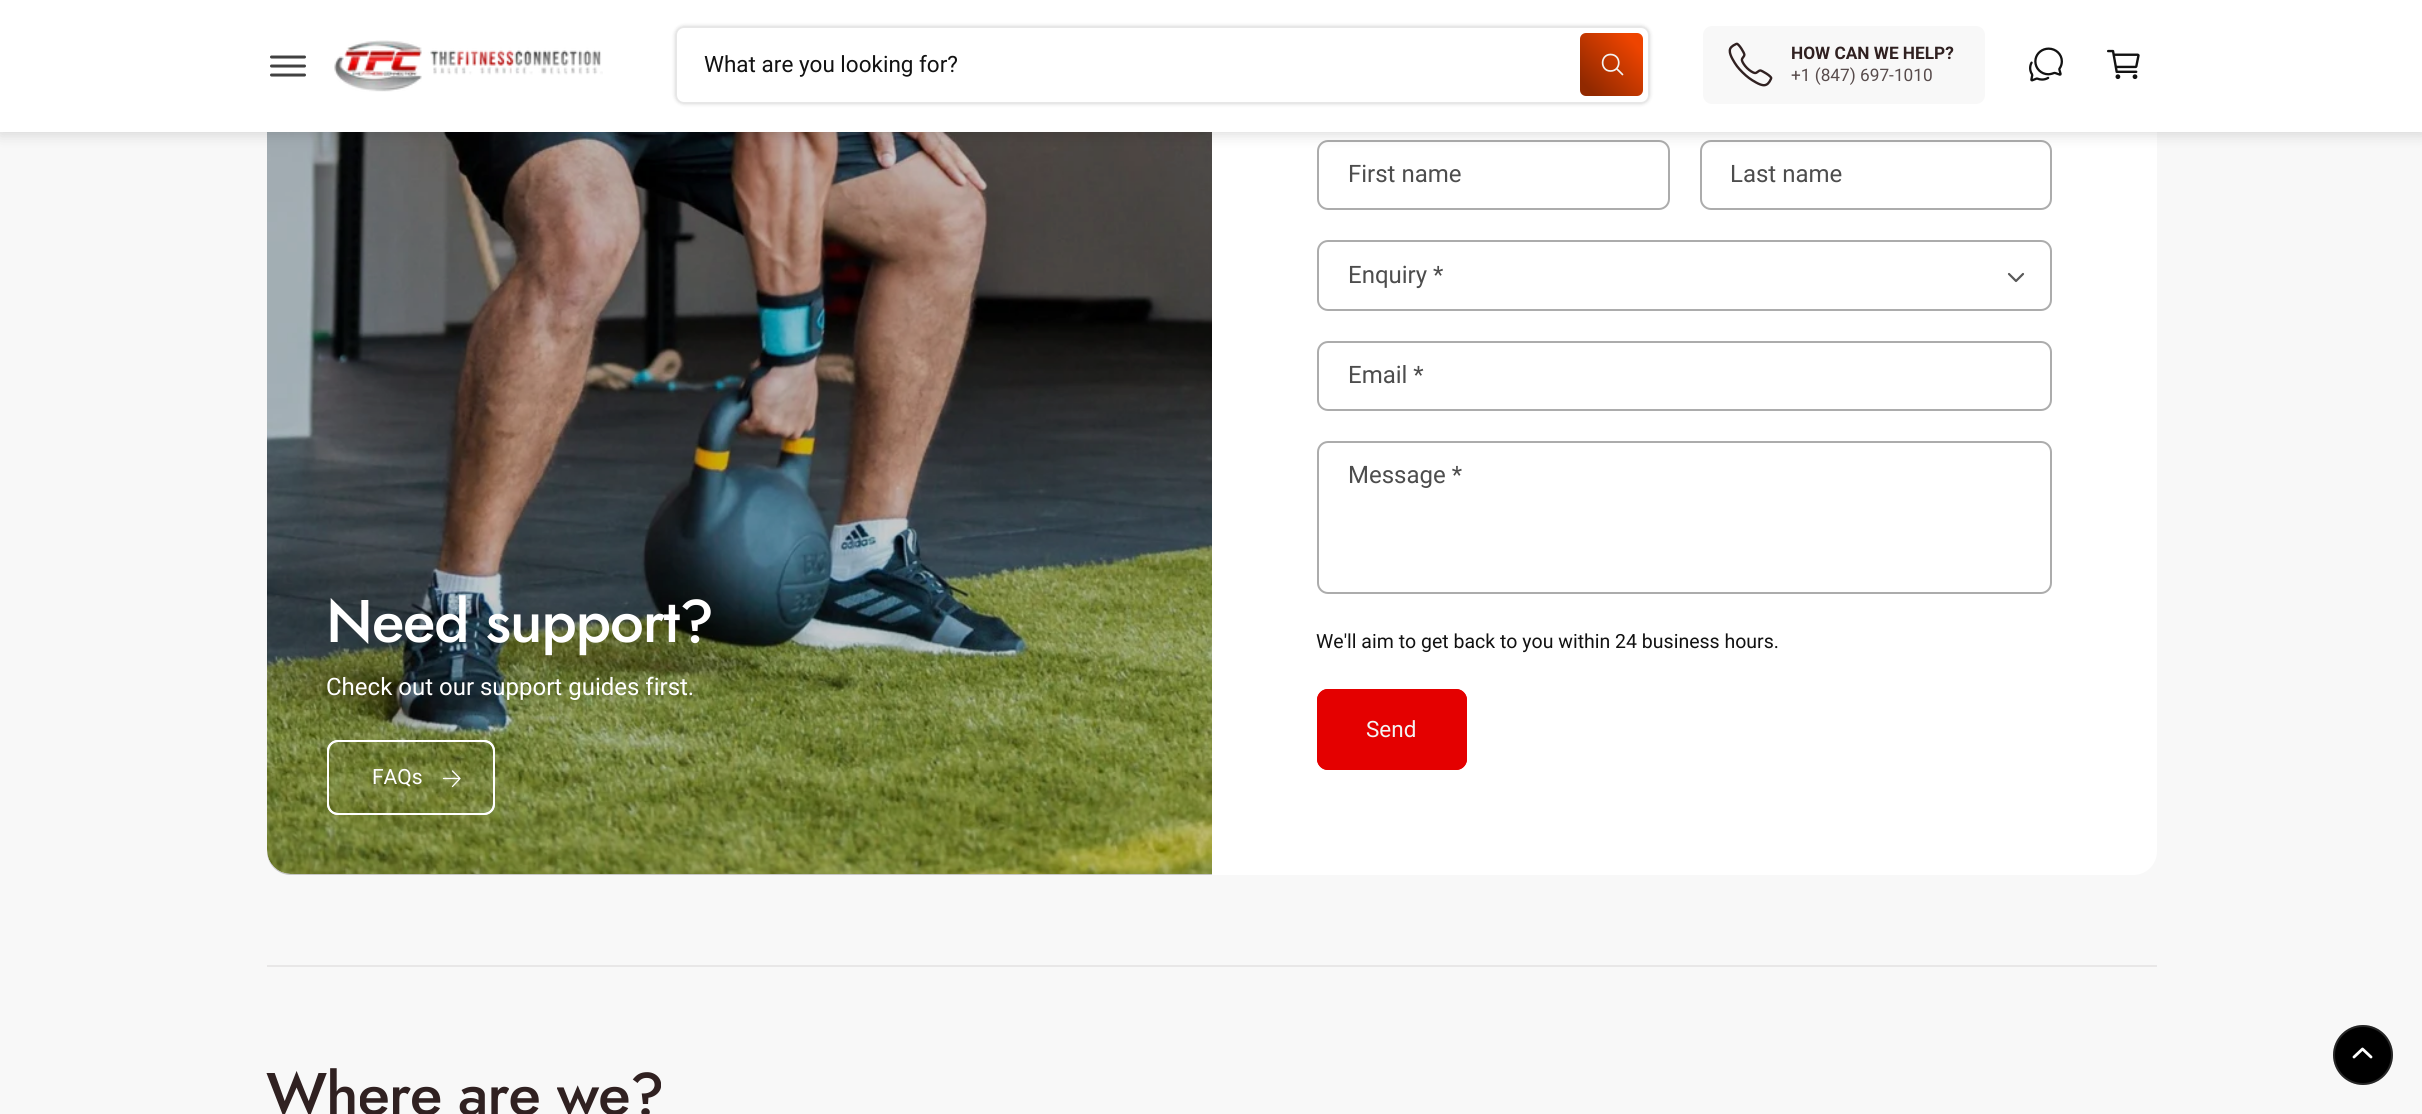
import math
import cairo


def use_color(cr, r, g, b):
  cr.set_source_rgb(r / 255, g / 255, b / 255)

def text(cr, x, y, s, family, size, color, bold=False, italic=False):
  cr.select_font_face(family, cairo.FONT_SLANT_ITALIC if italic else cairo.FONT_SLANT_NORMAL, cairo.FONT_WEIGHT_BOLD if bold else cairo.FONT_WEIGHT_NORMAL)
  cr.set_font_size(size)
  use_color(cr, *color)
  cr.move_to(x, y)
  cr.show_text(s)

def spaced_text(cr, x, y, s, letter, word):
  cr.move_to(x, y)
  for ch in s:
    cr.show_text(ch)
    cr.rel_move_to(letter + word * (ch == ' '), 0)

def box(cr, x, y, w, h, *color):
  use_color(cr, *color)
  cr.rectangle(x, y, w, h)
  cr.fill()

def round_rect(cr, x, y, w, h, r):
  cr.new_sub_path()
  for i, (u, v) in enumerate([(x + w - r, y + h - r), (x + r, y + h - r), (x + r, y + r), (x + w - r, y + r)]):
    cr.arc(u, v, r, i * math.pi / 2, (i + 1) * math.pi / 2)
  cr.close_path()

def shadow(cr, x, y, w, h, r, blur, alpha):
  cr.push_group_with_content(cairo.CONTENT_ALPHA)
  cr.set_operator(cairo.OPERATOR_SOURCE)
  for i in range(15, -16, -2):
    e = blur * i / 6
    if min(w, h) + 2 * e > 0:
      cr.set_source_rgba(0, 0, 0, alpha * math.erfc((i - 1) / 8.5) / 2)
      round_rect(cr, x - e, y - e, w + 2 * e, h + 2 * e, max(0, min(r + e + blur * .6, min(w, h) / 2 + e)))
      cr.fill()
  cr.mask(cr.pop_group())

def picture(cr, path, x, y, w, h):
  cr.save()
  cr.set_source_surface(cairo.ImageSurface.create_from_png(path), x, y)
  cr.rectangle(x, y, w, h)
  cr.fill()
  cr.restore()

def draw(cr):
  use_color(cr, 248, 248, 248)
  cr.paint()
  picture(cr, "img_05.png", 267, 132, 945, 742)
  cr.set_source_rgba(0, 0, 0, 0.2)
  cr.new_path()
  cr.move_to(291, -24)
  cr.line_to(1212, -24)
  cr.line_to(1212, 875)
  cr.line_to(291, 875)
  cr.curve_to(277.5, 875, 267, 864.5, 267, 851)
  cr.line_to(267, 0)
  cr.curve_to(267, -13.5, 277.5, -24, 291, -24)
  cr.close_path()
  cr.fill()
  use_color(cr, 255, 255, 255)
  cr.new_path()
  cr.move_to(1212, -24)
  cr.line_to(2133, -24)
  cr.curve_to(2146.5, -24, 2157, -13.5, 2157, 0)
  cr.line_to(2157, 851)
  cr.curve_to(2157, 864.5, 2146.5, 875, 2133, 875)
  cr.line_to(1212, 875)
  cr.close_path()
  cr.fill()
  round_rect(cr, 1318, 141, 351, 68, 10)
  use_color(cr, 172, 172, 172)
  cr.stroke()
  round_rect(cr, 1701, 141, 350, 68, 10)
  cr.stroke()
  use_color(cr, 0, 0, 0)
  shadow(cr, 0, 2, 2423, 132, 0, 7.5, 0.15)
  box(cr, 0, 0, 2422, 132, 255, 255, 255)
  cr.new_path()
  cr.move_to(271.5, 57)
  cr.line_to(304.5, 57)
  cr.move_to(271.5, 66)
  cr.line_to(304.5, 66)
  cr.move_to(271.5, 75)
  cr.line_to(304.5, 75)
  use_color(cr, 65, 65, 65)
  cr.set_line_width(3)
  cr.set_line_cap(cairo.LINE_CAP_ROUND)
  cr.stroke()
  picture(cr, "img_01.png", 334, 40, 269, 52)
  gradient = cairo.LinearGradient(1579, 95, 1643, 34)
  gradient.add_color_stop_rgba(0.13, 0.569, 0.161, 0, 1)
  gradient.add_color_stop_rgba(0.86, 0.933, 0.267, 0, 1)
  cr.set_source(gradient)
  round_rect(cr, 1580, 33, 63, 63, 6)
  cr.fill()
  cr.new_path()
  cr.move_to(1610.5, 54.5)
  cr.curve_to(1600, 54.5, 1600, 71, 1610.5, 71)
  cr.curve_to(1621.5, 71, 1621.5, 54.5, 1610.5, 54.5)
  cr.close_path()
  use_color(cr, 243, 243, 243)
  cr.set_line_width(1.7)
  cr.set_line_cap(cairo.LINE_CAP_BUTT)
  cr.stroke()
  cr.new_path()
  cr.move_to(1617, 69)
  cr.line_to(1622.5, 74.5)
  cr.set_line_cap(cairo.LINE_CAP_ROUND)
  cr.stroke()
  cr.save()
  cr.set_fill_rule(cairo.FILL_RULE_EVEN_ODD)
  cr.new_path()
  cr.move_to(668, 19)
  cr.line_to(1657, 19)
  cr.line_to(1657, 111)
  cr.line_to(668, 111)
  cr.close_path()
  cr.move_to(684, 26)
  cr.line_to(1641, 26)
  cr.curve_to(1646, 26, 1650, 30, 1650, 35)
  cr.line_to(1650, 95)
  cr.curve_to(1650, 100, 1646, 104, 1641, 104)
  cr.line_to(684, 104)
  cr.curve_to(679, 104, 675, 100, 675, 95)
  cr.line_to(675, 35)
  cr.curve_to(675, 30, 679, 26, 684, 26)
  cr.close_path()
  cr.clip()
  use_color(cr, 0, 0, 0)
  shadow(cr, 675, 26, 975, 78, 9, 2, 0.15)
  cr.restore()
  round_rect(cr, 676, 27, 973, 76, 8)
  cr.set_source_rgba(0.071, 0.071, 0.071, 0.1)
  cr.set_line_width(2)
  cr.set_line_cap(cairo.LINE_CAP_BUTT)
  cr.stroke()
  use_color(cr, 248, 248, 248)
  round_rect(cr, 1703, 26, 282, 78, 9)
  cr.fill()
  picture(cr, "img_02.png", 1728, 42, 45, 45)
  picture(cr, "img_03.png", 2029, 47, 34, 35)
  picture(cr, "img_04.png", 2107, 49, 33, 31)
  cr.new_path()
  cr.move_to(452.5, 771)
  cr.line_to(460, 778.5)
  cr.line_to(452.5, 786.5)
  cr.move_to(459, 778.5)
  cr.line_to(443.5, 778.5)
  use_color(cr, 255, 255, 255)
  cr.set_line_width(1.3)
  cr.set_line_cap(cairo.LINE_CAP_ROUND)
  cr.set_line_join(cairo.LINE_JOIN_ROUND)
  cr.stroke()
  round_rect(cr, 328, 741, 166, 73, 10)
  use_color(cr, 248, 248, 248)
  cr.set_line_width(2)
  cr.set_line_cap(cairo.LINE_CAP_BUTT)
  cr.set_line_join(cairo.LINE_JOIN_MITER)
  cr.stroke()
  round_rect(cr, 328, 741, 166, 73, 10)
  use_color(cr, 255, 255, 255)
  cr.stroke()
  cr.new_path()
  cr.move_to(2009, 274)
  cr.line_to(2016, 281)
  cr.line_to(2023, 274)
  use_color(cr, 89, 89, 89)
  cr.set_line_width(2.2)
  cr.set_line_cap(cairo.LINE_CAP_ROUND)
  cr.set_line_join(cairo.LINE_JOIN_ROUND)
  cr.stroke()
  round_rect(cr, 1318, 241, 733, 69, 10)
  use_color(cr, 172, 172, 172)
  cr.set_line_width(2)
  cr.set_line_cap(cairo.LINE_CAP_BUTT)
  cr.set_line_join(cairo.LINE_JOIN_MITER)
  cr.stroke()
  round_rect(cr, 1318, 342, 733, 68, 10)
  cr.stroke()
  round_rect(cr, 1318, 442, 733, 151, 10)
  cr.stroke()
  use_color(cr, 228, 0, 0)
  round_rect(cr, 1317, 689, 150, 81, 11)
  cr.fill()
  round_rect(cr, 1318, 690, 148, 79, 10)
  cr.stroke()
  box(cr, 267, 965, 1890, 2, 232, 231, 231)
  use_color(cr, 0, 0, 0)
  cr.arc(2363, 1055, 30, 0, 2 * math.pi)
  cr.fill()
  cr.arc(2363, 1055, 29, 0, 2 * math.pi)
  cr.set_source_rgba(1, 1, 1, 0.15)
  cr.stroke()
  cr.new_path()
  cr.move_to(2371, 1057)
  cr.line_to(2362.5, 1049)
  cr.line_to(2354, 1057)
  use_color(cr, 255, 255, 255)
  cr.set_line_width(2.8)
  cr.set_line_cap(cairo.LINE_CAP_ROUND)
  cr.set_line_join(cairo.LINE_JOIN_ROUND)
  cr.stroke()
  text(cr, 704, 72, "What are you looking for?", "Roboto", 22.5, (18, 18, 18))
  text(cr, 1791, 59, "HOW CAN WE HELP?", "Roboto", 17.25, (48, 33, 33), bold=True)
  text(cr, 1791, 81, "+1 (847) 697-1010", "Roboto", 17.25, (88, 76, 76))
  cr.select_font_face("Jost Medium")
  cr.set_font_size(60)
  use_color(cr, 255, 255, 255)
  spaced_text(cr, 326, 642, "Need support?", -1.1, 0)
  text(cr, 326, 695, "Check out our support guides first.", "Roboto", 24, (255, 255, 255))
  text(cr, 372, 784, "FAQs", "Roboto", 21, (255, 255, 255))
  text(cr, 1348, 182, "First name", "Roboto", 24, (77, 77, 77))
  text(cr, 1730, 182, "Last name", "Roboto", 24, (77, 77, 77))
  text(cr, 1348, 283, "Enquiry *", "Roboto", 24, (77, 77, 77))
  text(cr, 1348, 383, "Email *", "Roboto", 24, (77, 77, 77))
  text(cr, 1348, 483, "Message *", "Roboto", 24, (77, 77, 77))
  text(cr, 1316, 648, "We'll aim to get back to you within 24 business hours.", "Roboto", 19.5, (18, 18, 18))
  text(cr, 1366, 737, "Send", "Roboto", 22.5, (243, 243, 243))
  cr.select_font_face("Jost Medium")
  cr.set_font_size(60)
  use_color(cr, 48, 33, 33)
  spaced_text(cr, 266, 1115, "Where are we?", -1.1, 0)


surface = cairo.ImageSurface(cairo.FORMAT_RGB24, 2422, 1114)
cr = cairo.Context(surface)
options = cairo.FontOptions()
options.set_hint_metrics(cairo.HINT_METRICS_OFF)
options.set_hint_style(cairo.HINT_STYLE_NONE)
cr.set_font_options(options)
cr.set_miter_limit(4)
draw(cr)
surface.write_to_png("out.png")
